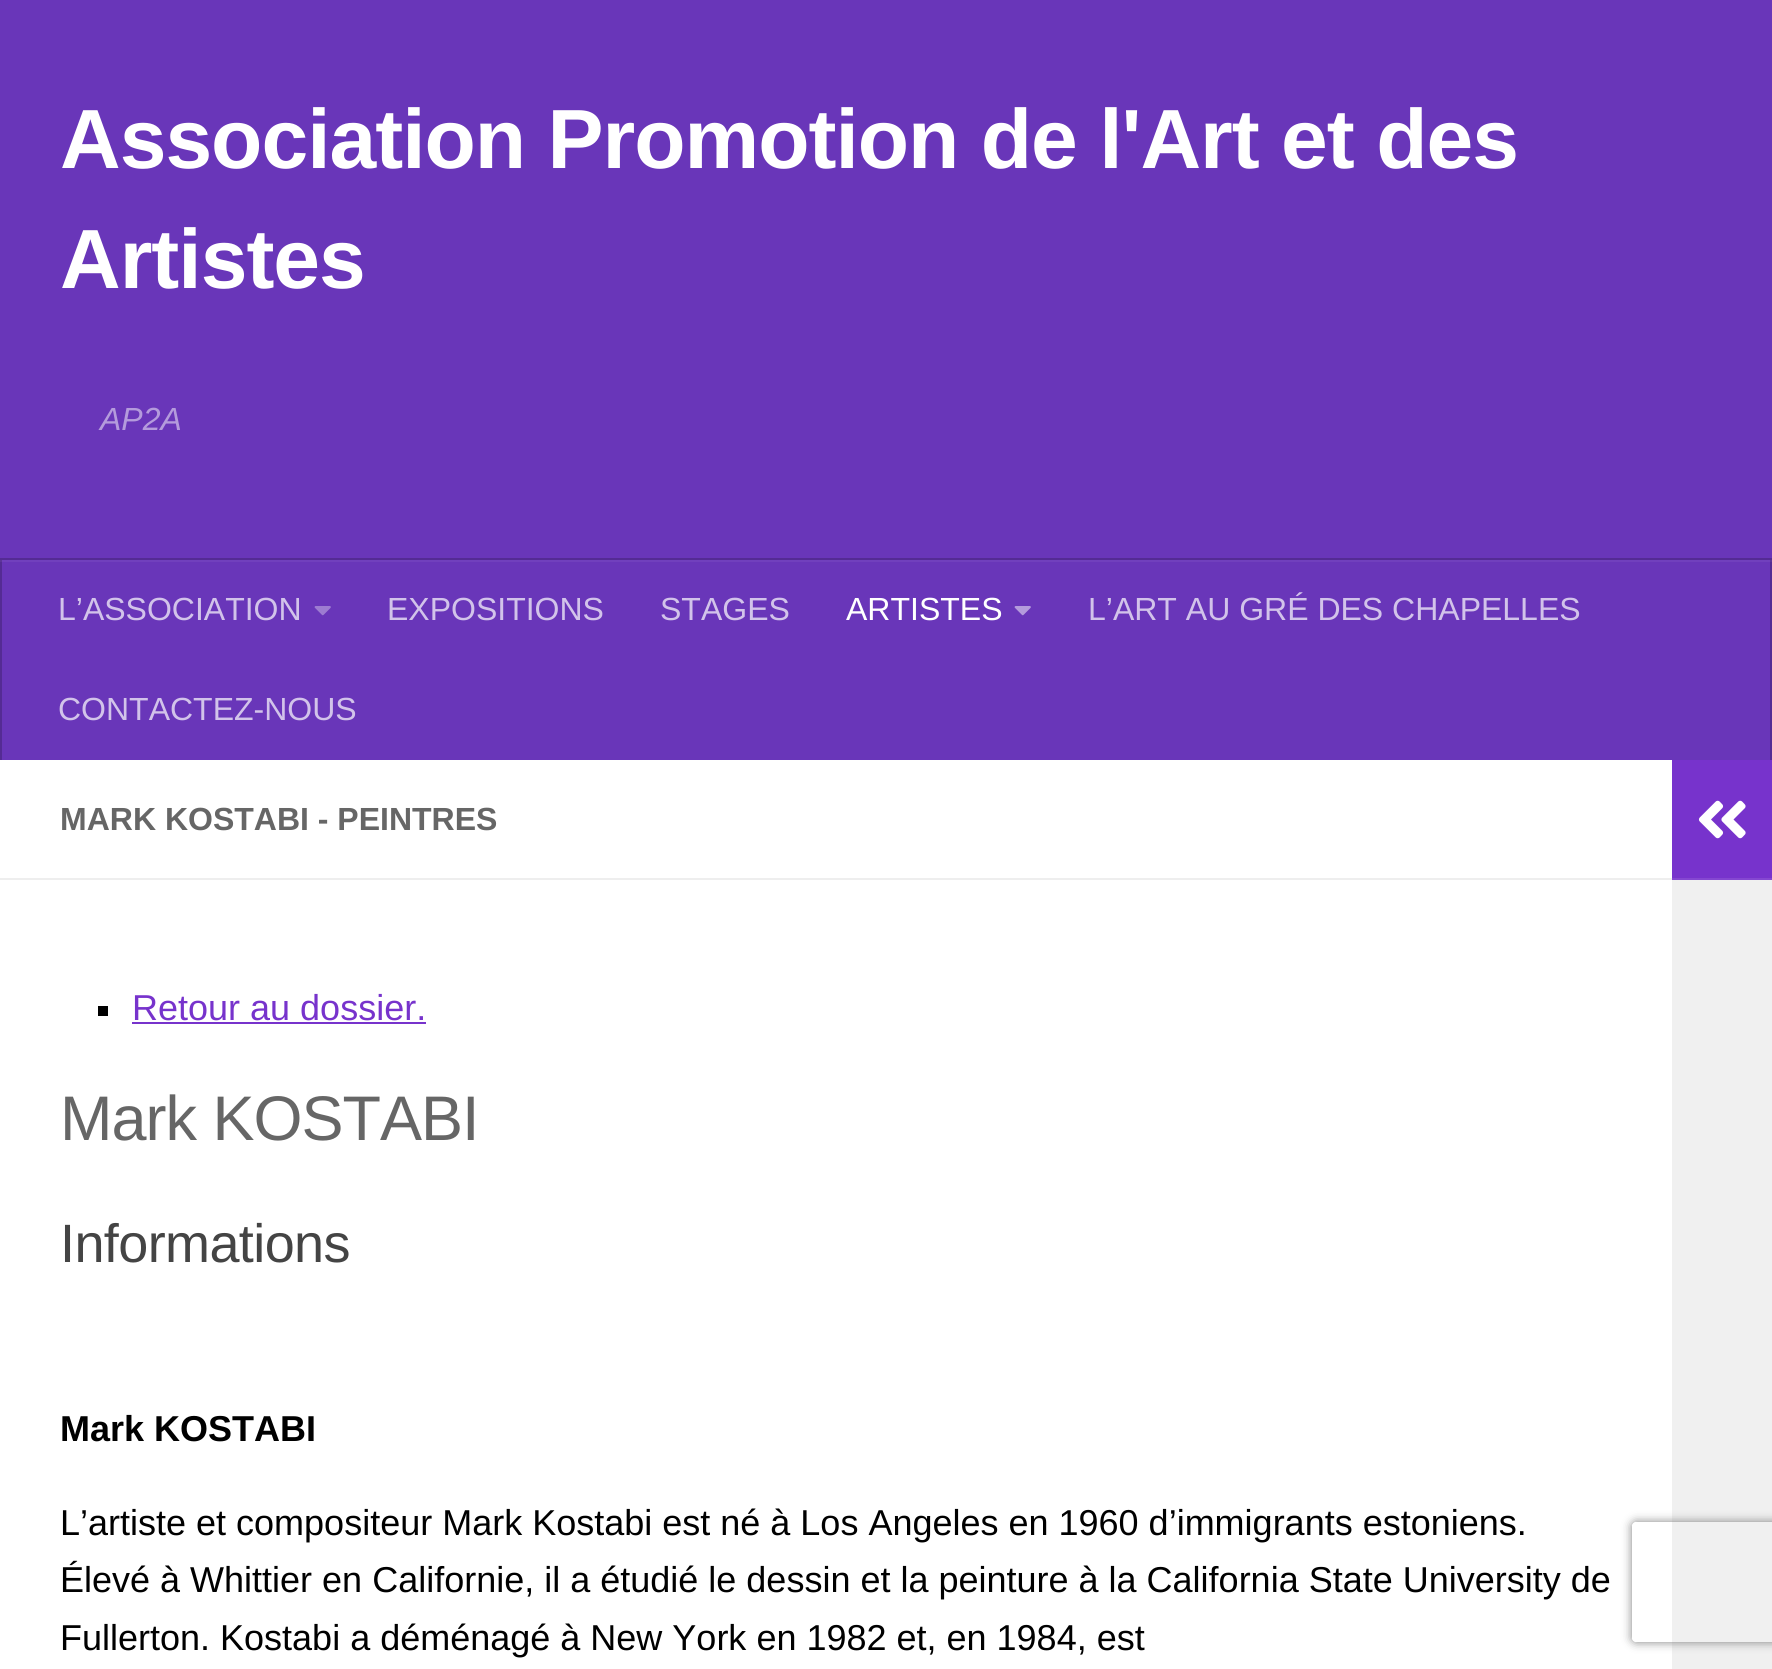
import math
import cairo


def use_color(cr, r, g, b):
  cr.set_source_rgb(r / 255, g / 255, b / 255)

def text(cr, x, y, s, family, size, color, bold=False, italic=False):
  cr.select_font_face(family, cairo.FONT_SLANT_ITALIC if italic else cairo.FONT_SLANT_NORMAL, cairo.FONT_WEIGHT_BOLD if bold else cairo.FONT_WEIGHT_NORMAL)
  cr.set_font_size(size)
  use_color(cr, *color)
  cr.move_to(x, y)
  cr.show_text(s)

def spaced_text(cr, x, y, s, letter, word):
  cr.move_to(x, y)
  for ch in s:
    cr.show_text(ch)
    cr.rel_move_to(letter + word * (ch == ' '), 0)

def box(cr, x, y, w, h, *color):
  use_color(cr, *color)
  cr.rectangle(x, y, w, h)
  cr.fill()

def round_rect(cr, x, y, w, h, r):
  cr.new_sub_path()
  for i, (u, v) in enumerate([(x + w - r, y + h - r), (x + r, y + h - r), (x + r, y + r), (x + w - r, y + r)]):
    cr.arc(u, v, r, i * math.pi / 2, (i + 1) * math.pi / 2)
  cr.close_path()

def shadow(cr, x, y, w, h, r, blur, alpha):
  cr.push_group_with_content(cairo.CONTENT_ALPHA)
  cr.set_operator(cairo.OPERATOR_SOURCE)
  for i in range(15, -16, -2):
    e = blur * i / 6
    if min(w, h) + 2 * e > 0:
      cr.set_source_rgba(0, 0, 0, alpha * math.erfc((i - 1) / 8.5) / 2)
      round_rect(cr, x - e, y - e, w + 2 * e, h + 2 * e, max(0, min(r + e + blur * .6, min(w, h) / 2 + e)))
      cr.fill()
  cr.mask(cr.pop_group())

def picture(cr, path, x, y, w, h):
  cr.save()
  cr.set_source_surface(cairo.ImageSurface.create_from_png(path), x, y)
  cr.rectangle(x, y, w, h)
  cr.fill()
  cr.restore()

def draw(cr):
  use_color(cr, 105, 54, 185)
  cr.paint()
  box(cr, 0, 560, 1772, 2, 113, 64, 189)
  box(cr, 0, 558, 1772, 2, 84, 43, 148)
  box(cr, 1770, 560, 2, 200, 84, 43, 148)
  box(cr, 1770, 560, 2, 2, 93, 54, 153)
  box(cr, 0, 560, 2, 200, 84, 43, 148)
  box(cr, 0, 560, 2, 2, 93, 54, 153)
  picture(cr, "img_01.png", 314, 606, 17, 10)
  picture(cr, "img_02.png", 1014, 606, 17, 10)
  box(cr, 0, 760, 1672, 909, 255, 255, 255)
  box(cr, 0, 878, 1672, 2, 238, 238, 238)
  box(cr, 98, 1006, 10, 10, 0, 0, 0)
  box(cr, 132, 1022, 294, 2, 119, 51, 204)
  box(cr, 1672, 760, 100, 118, 119, 51, 204)
  box(cr, 1672, 878, 100, 2, 133, 71, 209)
  picture(cr, "img_03.png", 1698, 800, 48, 39)
  box(cr, 1672, 880, 100, 789, 240, 240, 240)
  cr.save()
  cr.set_fill_rule(cairo.FILL_RULE_EVEN_ODD)
  cr.new_path()
  cr.move_to(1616, 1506)
  cr.line_to(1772, 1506)
  cr.line_to(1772, 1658)
  cr.line_to(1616, 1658)
  cr.close_path()
  cr.move_to(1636, 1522)
  cr.line_to(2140, 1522)
  cr.curve_to(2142, 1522, 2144, 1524, 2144, 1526)
  cr.line_to(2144, 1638)
  cr.curve_to(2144, 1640, 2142, 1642, 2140, 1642)
  cr.line_to(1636, 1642)
  cr.curve_to(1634, 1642, 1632, 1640, 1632, 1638)
  cr.line_to(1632, 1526)
  cr.curve_to(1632, 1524, 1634, 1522, 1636, 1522)
  cr.close_path()
  cr.clip()
  use_color(cr, 128, 128, 128)
  shadow(cr, 1632, 1522, 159, 120, 4, 5, 1)
  cr.restore()
  cr.select_font_face("Liberation Sans", cairo.FONT_SLANT_NORMAL, cairo.FONT_WEIGHT_BOLD)
  cr.set_font_size(84)
  use_color(cr, 255, 255, 255)
  spaced_text(cr, 60, 168, "Association Promotion de l'Art et des", -1, 0)
  spaced_text(cr, 60, 288, "Artistes", -1, 0)
  text(cr, 100, 430, "AP2A", "Liberation Sans", 32, (180, 155, 220), italic=True)
  text(cr, 58, 620, "L’ASSOCIATION", "Liberation Sans", 32, (210, 195, 234))
  text(cr, 387, 620, "EXPOSITIONS", "Liberation Sans", 32, (210, 195, 234))
  text(cr, 660, 620, "STAGES", "Liberation Sans", 32, (210, 195, 234))
  text(cr, 846, 620, "ARTISTES", "Liberation Sans", 32, (255, 255, 255))
  text(cr, 1088, 620, "L’ART AU GRÉ DES CHAPELLES", "Liberation Sans", 32, (210, 195, 234))
  text(cr, 58, 720, "CONTACTEZ-NOUS", "Liberation Sans", 32, (210, 195, 234))
  text(cr, 60, 830, "MARK KOSTABI - PEINTRES", "Liberation Sans", 32, (102, 102, 102), bold=True)
  text(cr, 132, 1020, "Retour au dossier.", "Liberation Sans", 36, (119, 51, 204))
  cr.set_font_size(63)
  use_color(cr, 102, 102, 102)
  spaced_text(cr, 60, 1140, "Mark KOSTABI", -1, 0)
  cr.set_font_size(54)
  use_color(cr, 68, 68, 68)
  spaced_text(cr, 60, 1262, "Informations", -0.6, 0)
  text(cr, 60, 1441, "Mark KOSTABI", "Liberation Sans", 36, (0, 0, 0), bold=True)
  text(cr, 60, 1535, "L’artiste et compositeur Mark Kostabi est né à Los Angeles en 1960 d’immigrants estoniens.", "Liberation Sans", 36, (0, 0, 0))
  text(cr, 60, 1592, "Élevé à Whittier en Californie, il a étudié le dessin et la peinture à la California State University de", "Liberation Sans", 36, (0, 0, 0))
  text(cr, 60, 1650, "Fullerton. Kostabi a déménagé à New York en 1982 et, en 1984, est", "Liberation Sans", 36, (0, 0, 0))


surface = cairo.ImageSurface(cairo.FORMAT_RGB24, 1772, 1669)
cr = cairo.Context(surface)
options = cairo.FontOptions()
options.set_hint_metrics(cairo.HINT_METRICS_OFF)
options.set_hint_style(cairo.HINT_STYLE_NONE)
cr.set_font_options(options)
cr.set_miter_limit(4)
draw(cr)
surface.write_to_png("out.png")
